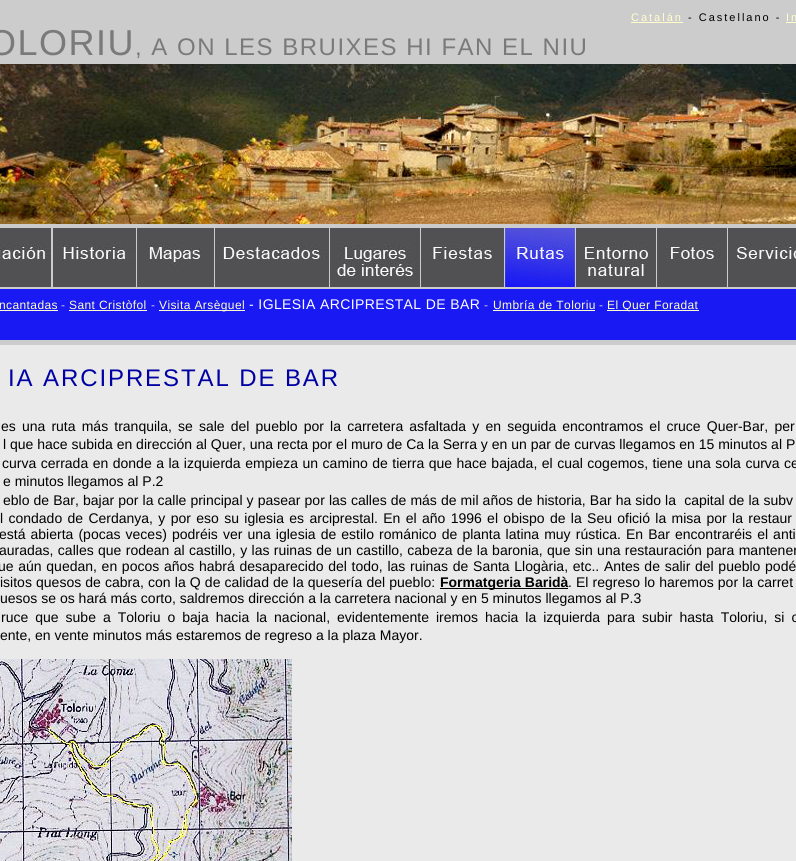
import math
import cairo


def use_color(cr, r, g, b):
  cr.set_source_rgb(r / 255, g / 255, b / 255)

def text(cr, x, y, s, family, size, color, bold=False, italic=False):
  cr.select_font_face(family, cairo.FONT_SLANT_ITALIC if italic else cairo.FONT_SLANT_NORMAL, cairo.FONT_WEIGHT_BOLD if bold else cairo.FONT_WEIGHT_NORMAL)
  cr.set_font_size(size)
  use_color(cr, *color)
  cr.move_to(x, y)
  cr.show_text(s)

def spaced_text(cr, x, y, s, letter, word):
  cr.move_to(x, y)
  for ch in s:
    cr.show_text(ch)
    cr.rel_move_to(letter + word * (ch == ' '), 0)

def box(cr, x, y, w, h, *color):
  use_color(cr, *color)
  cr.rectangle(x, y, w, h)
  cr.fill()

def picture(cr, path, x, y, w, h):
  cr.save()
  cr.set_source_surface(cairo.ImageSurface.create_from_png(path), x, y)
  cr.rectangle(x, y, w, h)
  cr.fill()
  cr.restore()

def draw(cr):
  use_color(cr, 204, 204, 204)
  cr.paint()
  box(cr, 631, 22, 52, 1, 255, 255, 204)
  box(cr, 786, 22, 10, 1, 255, 255, 204)
  picture(cr, "img_01.png", 0, 228, 51, 59)
  picture(cr, "img_02.png", 53, 228, 83, 59)
  picture(cr, "img_03.png", 137, 228, 77, 59)
  picture(cr, "img_04.png", 215, 228, 114, 59)
  picture(cr, "img_05.png", 330, 228, 90, 59)
  picture(cr, "img_06.png", 421, 228, 83, 59)
  picture(cr, "img_07.png", 505, 228, 70, 59)
  picture(cr, "img_08.png", 576, 228, 80, 59)
  picture(cr, "img_09.png", 657, 228, 70, 59)
  picture(cr, "img_10.png", 728, 228, 68, 59)
  picture(cr, "img_11.png", 0, 64, 796, 160)
  box(cr, 0, 289, 796, 51, 25, 25, 244)
  box(cr, 0, 310, 58, 1, 255, 255, 204)
  box(cr, 69, 310, 78, 1, 255, 255, 204)
  box(cr, 159, 310, 86, 1, 255, 255, 204)
  box(cr, 493, 310, 102, 1, 255, 255, 204)
  box(cr, 607, 310, 92, 1, 255, 255, 204)
  box(cr, 0, 345, 796, 516, 234, 234, 234)
  box(cr, 440, 588, 128, 1, 0, 0, 0)
  picture(cr, "img_12.png", 0, 659, 292, 202)
  cr.select_font_face("Liberation Sans")
  cr.set_font_size(11)
  use_color(cr, 255, 255, 204)
  spaced_text(cr, 631, 21, "Catalán", 2, 0)
  use_color(cr, 0, 0, 0)
  spaced_text(cr, 688, 21, "- Castellano -", 2, 0)
  use_color(cr, 255, 255, 204)
  spaced_text(cr, 786, 21, "In", 2, 0)
  cr.set_font_size(36)
  use_color(cr, 122, 122, 122)
  spaced_text(cr, -12, 55, "OLORIU", 1.5, 0)
  cr.set_font_size(24)
  spaced_text(cr, 135, 55, ", A ON LES BRUIXES HI FAN EL NIU", 1.5, 0)
  cr.set_font_size(12)
  use_color(cr, 255, 255, 204)
  spaced_text(cr, -1, 309, "ncantadas", 0.4, 0)
  use_color(cr, 204, 204, 204)
  spaced_text(cr, 61, 309, "-", 0.4, 0)
  use_color(cr, 255, 255, 204)
  spaced_text(cr, 69, 309, "Sant Cristòfol", 0.4, 0)
  use_color(cr, 204, 204, 204)
  spaced_text(cr, 151, 309, "-", 0.4, 0)
  use_color(cr, 255, 255, 204)
  spaced_text(cr, 159, 309, "Visita Arsèguel", 0.4, 0)
  cr.set_font_size(14)
  use_color(cr, 255, 255, 255)
  spaced_text(cr, 249, 309, "- IGLESIA ARCIPRESTAL DE BAR", 0.4, 0)
  cr.set_font_size(12)
  use_color(cr, 204, 204, 204)
  spaced_text(cr, 484, 309, "-", 0.4, 0)
  use_color(cr, 255, 255, 204)
  spaced_text(cr, 493, 309, "Umbría de Toloriu", 0.4, 0)
  use_color(cr, 204, 204, 204)
  spaced_text(cr, 599, 309, "-", 0.4, 0)
  use_color(cr, 255, 255, 204)
  spaced_text(cr, 607, 309, "El Quer Foradat", 0.4, 0)
  cr.set_font_size(24)
  use_color(cr, 0, 0, 165)
  spaced_text(cr, 8, 386, "IA ARCIPRESTAL DE BAR", 1.9, 0)
  cr.set_font_size(14)
  use_color(cr, 0, 0, 0)
  spaced_text(cr, 1, 431, "es una ruta más tranquila, se sale del pueblo por la carretera asfaltada y en seguida encontramos el cruce Quer-Bar, per", 0, 2.25)
  text(cr, 3, 449, "l que hace subida en dirección al Quer, una recta por el muro de Ca la Serra y en un par de curvas llegamos en 15 minutos al P", "Liberation Sans", 14, (0, 0, 0))
  spaced_text(cr, 2, 468, "curva cerrada en donde a la izquierda empieza un camino de tierra que hace bajada, el cual cogemos, tiene una sola curva ce", 0, 0.6)
  text(cr, 3, 486, "e minutos llegamos al P.2", "Liberation Sans", 14, (0, 0, 0))
  spaced_text(cr, 3, 505, "eblo de Bar, bajar por la calle principal y pasear por las calles de más de mil años de historia, Bar ha sido la  capital de la subv", 0, 0.2)
  spaced_text(cr, 0, 523, "l condado de Cerdanya, y por eso su iglesia es arciprestal. En el año 1996 el obispo de la Seu ofició la misa por la restaur", 0, 1.45)
  spaced_text(cr, -1, 539, "está abierta (pocas veces) podréis ver una iglesia de estilo románico de planta latina muy rústica. En Bar encontraréis el anti", 0, 1.2)
  spaced_text(cr, -1, 555, "auradas, calles que rodean al castillo, y las ruinas de un castillo, cabeza de la baronia, que sin una restauración para mantener", 0, 0.5)
  spaced_text(cr, -2, 571, "ue aún quedan, en pocos años habrá desaparecido del todo, las ruinas de Santa Llogària, etc.. Antes de salir del pueblo podé", 0, 0.8)
  spaced_text(cr, 0, 587, "isitos quesos de cabra, con la Q de calidad de la quesería del pueblo:", 0, 0.25)
  text(cr, 440, 587, "Formatgeria Baridà", "Liberation Sans", 14, (0, 0, 0), bold=True)
  text(cr, 568, 587, ".", "Liberation Sans", 14, (0, 0, 0))
  spaced_text(cr, 576, 587, "El regreso lo haremos por la carret", 0, 0.25)
  text(cr, 0, 603, "uesos se os hará más corto, saldremos dirección a la carretera nacional y en 5 minutos llegamos al P.3", "Liberation Sans", 14, (0, 0, 0))
  spaced_text(cr, 1, 622, "ruce que sube a Toloriu o baja hacia la nacional, evidentemente iremos hacia la izquierda para subir hasta Toloriu, si c", 0, 3.1)
  text(cr, 0, 640, "ente, en vente minutos más estaremos de regreso a la plaza Mayor.", "Liberation Sans", 14, (0, 0, 0))


surface = cairo.ImageSurface(cairo.FORMAT_RGB24, 796, 861)
cr = cairo.Context(surface)
options = cairo.FontOptions()
options.set_hint_metrics(cairo.HINT_METRICS_OFF)
options.set_hint_style(cairo.HINT_STYLE_NONE)
cr.set_font_options(options)
cr.set_miter_limit(4)
draw(cr)
surface.write_to_png("out.png")
